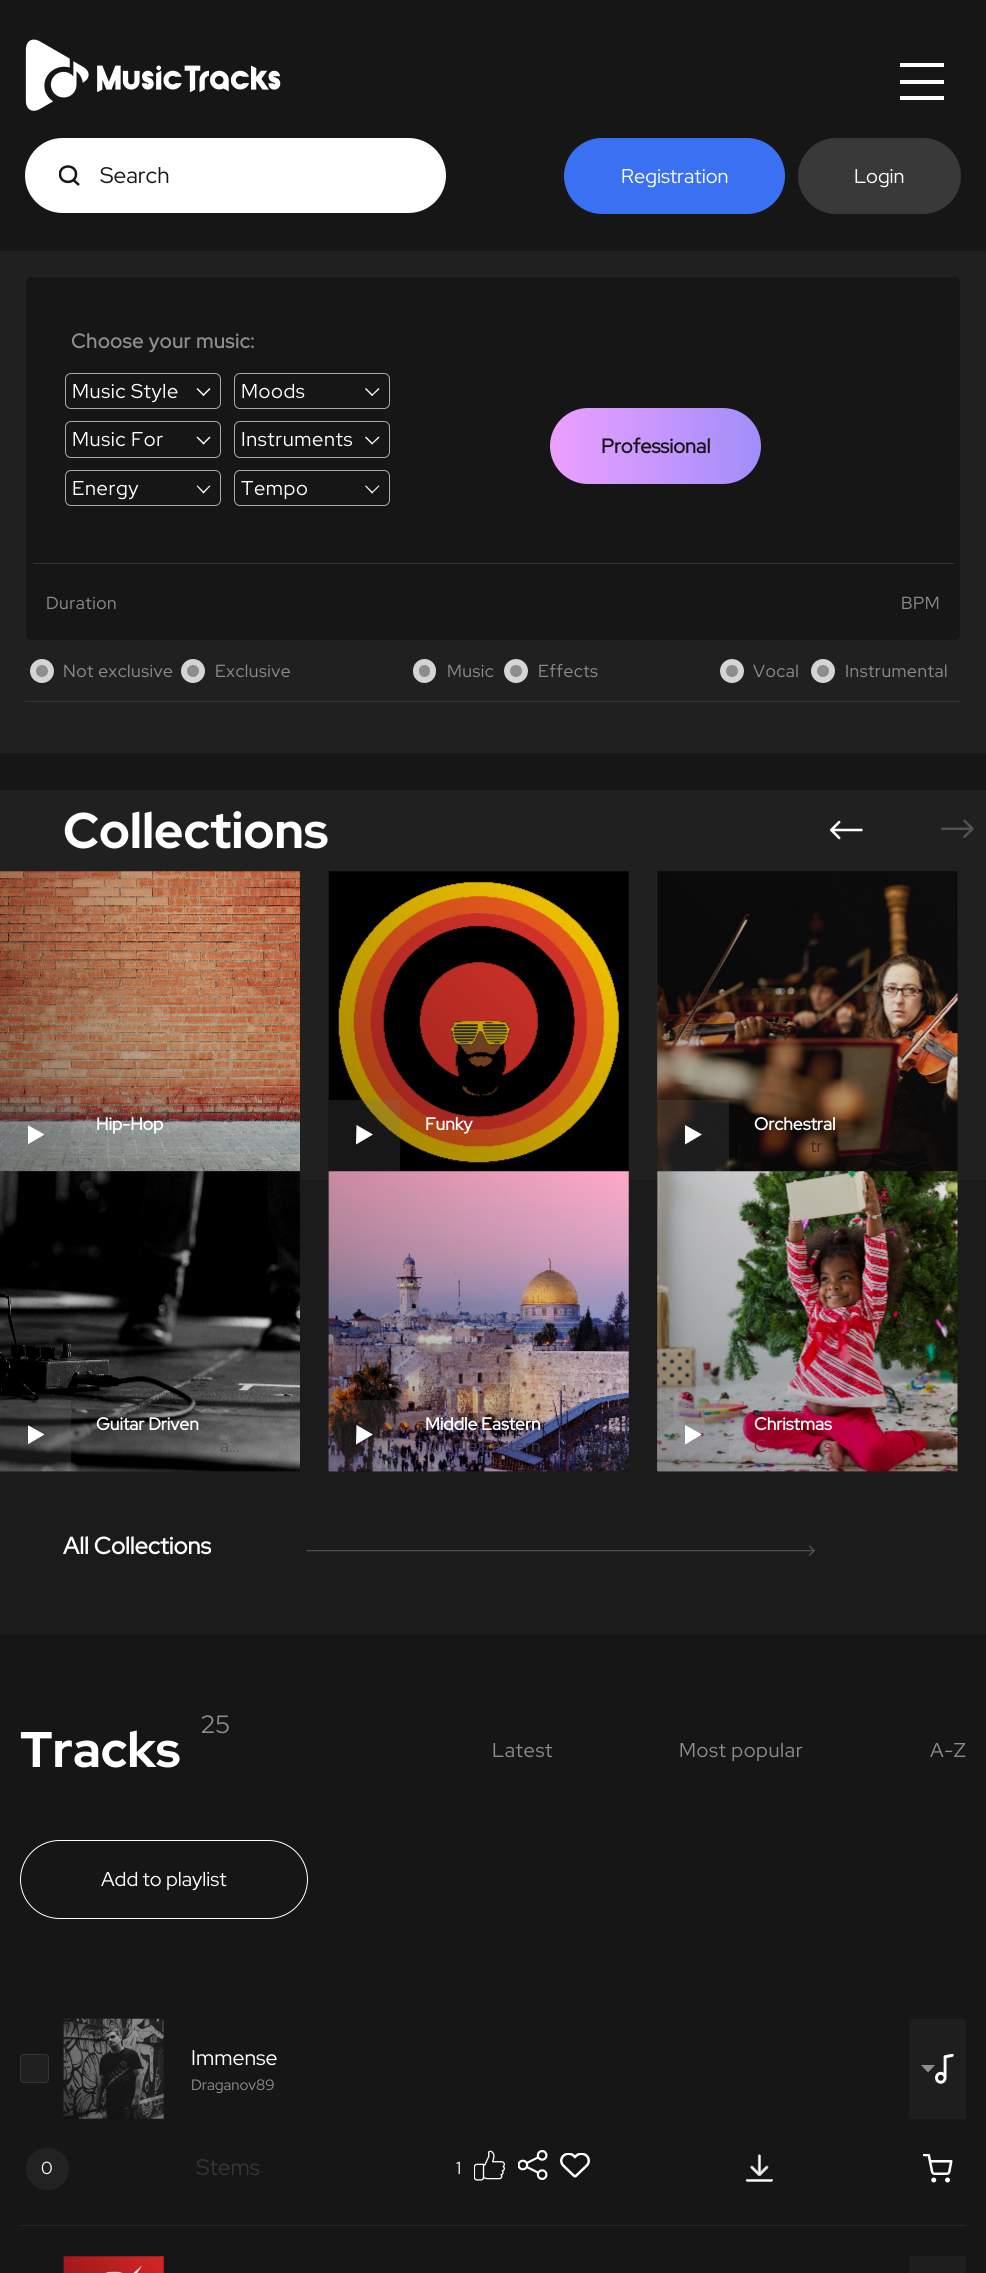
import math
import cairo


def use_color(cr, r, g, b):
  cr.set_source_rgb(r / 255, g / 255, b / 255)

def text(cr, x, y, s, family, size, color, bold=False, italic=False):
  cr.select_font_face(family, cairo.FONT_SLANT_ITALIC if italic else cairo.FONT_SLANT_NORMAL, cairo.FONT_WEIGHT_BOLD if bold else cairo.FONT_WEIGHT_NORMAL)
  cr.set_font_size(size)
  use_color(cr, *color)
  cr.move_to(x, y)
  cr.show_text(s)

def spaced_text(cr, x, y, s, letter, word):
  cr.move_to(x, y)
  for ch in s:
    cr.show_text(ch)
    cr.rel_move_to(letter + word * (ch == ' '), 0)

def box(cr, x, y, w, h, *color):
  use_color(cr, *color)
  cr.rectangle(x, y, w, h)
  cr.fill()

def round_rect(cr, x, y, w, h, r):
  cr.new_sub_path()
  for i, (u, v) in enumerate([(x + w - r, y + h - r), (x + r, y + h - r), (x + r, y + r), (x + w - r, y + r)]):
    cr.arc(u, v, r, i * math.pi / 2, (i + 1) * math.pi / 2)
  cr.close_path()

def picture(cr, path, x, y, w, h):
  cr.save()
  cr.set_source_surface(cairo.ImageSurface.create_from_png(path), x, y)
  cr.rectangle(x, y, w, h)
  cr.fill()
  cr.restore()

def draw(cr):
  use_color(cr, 22, 22, 22)
  cr.paint()
  box(cr, 900, 63, 44, 4, 255, 255, 255)
  box(cr, 900, 80, 44, 4, 255, 255, 255)
  box(cr, 900, 96, 44, 4, 255, 255, 255)
  picture(cr, "img_01.png", 25, 39, 256, 72)
  round_rect(cr, 25, 138, 421, 75, 37.5)
  cr.fill()
  cr.save()
  cr.rectangle(59, 165, 21, 21)
  cr.clip()
  cr.new_path()
  cr.move_to(73.5, 180)
  cr.line_to(79, 185)
  cr.move_to(76, 174)
  cr.curve_to(76, 184.5, 60, 184.5, 60, 174)
  cr.curve_to(60, 164, 76, 164, 76, 174)
  cr.close_path()
  use_color(cr, 22, 22, 22)
  cr.set_line_width(2.5)
  cr.stroke()
  cr.restore()
  use_color(cr, 57, 113, 242)
  round_rect(cr, 564, 138, 221, 76, 38)
  cr.fill()
  use_color(cr, 57, 57, 57)
  round_rect(cr, 798, 138, 163, 76, 38)
  cr.fill()
  box(cr, 0, 251, 986, 502, 32, 32, 32)
  use_color(cr, 22, 22, 22)
  round_rect(cr, 25.5, 276.5, 935, 364, 5.5)
  cr.fill_preserve()
  use_color(cr, 34, 34, 34)
  cr.set_line_width(1)
  cr.stroke()
  round_rect(cr, 65.5, 373.5, 155, 35, 5.5)
  use_color(cr, 170, 170, 170)
  cr.stroke()
  use_color(cr, 255, 255, 255)
  cr.new_path()
  cr.move_to(209.5, 388)
  cr.line_to(210.5, 389)
  cr.line_to(203.5, 396)
  cr.line_to(202.5, 395)
  cr.close_path()
  cr.fill()
  cr.new_path()
  cr.move_to(197.5, 388)
  cr.line_to(204.5, 395)
  cr.line_to(203.5, 396)
  cr.line_to(196.5, 389)
  cr.close_path()
  cr.fill()
  round_rect(cr, 234.5, 373.5, 155, 35, 5.5)
  use_color(cr, 170, 170, 170)
  cr.stroke()
  use_color(cr, 255, 255, 255)
  cr.new_path()
  cr.move_to(378.5, 388)
  cr.line_to(379.5, 389)
  cr.line_to(372, 396)
  cr.line_to(371.5, 395)
  cr.close_path()
  cr.fill()
  cr.new_path()
  cr.move_to(366, 388)
  cr.line_to(373, 395)
  cr.line_to(372, 396)
  cr.line_to(365, 389)
  cr.close_path()
  cr.fill()
  round_rect(cr, 65.5, 421.5, 155, 36, 5.5)
  use_color(cr, 170, 170, 170)
  cr.stroke()
  use_color(cr, 255, 255, 255)
  cr.new_path()
  cr.move_to(209.5, 436.5)
  cr.line_to(210.5, 437.5)
  cr.line_to(203.5, 444.5)
  cr.line_to(202.5, 443.5)
  cr.close_path()
  cr.fill()
  cr.new_path()
  cr.move_to(197.5, 436.5)
  cr.line_to(204.5, 443.5)
  cr.line_to(203.5, 444.5)
  cr.line_to(196.5, 437.5)
  cr.close_path()
  cr.fill()
  round_rect(cr, 234.5, 421.5, 155, 36, 5.5)
  use_color(cr, 170, 170, 170)
  cr.stroke()
  use_color(cr, 255, 255, 255)
  cr.new_path()
  cr.move_to(378.5, 436.5)
  cr.line_to(379.5, 437.5)
  cr.line_to(372, 444.5)
  cr.line_to(371.5, 443.5)
  cr.close_path()
  cr.fill()
  cr.new_path()
  cr.move_to(366, 436.5)
  cr.line_to(373, 443.5)
  cr.line_to(372, 444.5)
  cr.line_to(365, 437.5)
  cr.close_path()
  cr.fill()
  round_rect(cr, 65.5, 470.5, 155, 35, 5.5)
  use_color(cr, 170, 170, 170)
  cr.stroke()
  use_color(cr, 255, 255, 255)
  cr.new_path()
  cr.move_to(209.5, 485.5)
  cr.line_to(210.5, 486)
  cr.line_to(203.5, 493.5)
  cr.line_to(202.5, 492.5)
  cr.close_path()
  cr.fill()
  cr.new_path()
  cr.move_to(197.5, 485.5)
  cr.line_to(204.5, 492.5)
  cr.line_to(203.5, 493.5)
  cr.line_to(196.5, 486)
  cr.close_path()
  cr.fill()
  round_rect(cr, 234.5, 470.5, 155, 35, 5.5)
  use_color(cr, 170, 170, 170)
  cr.stroke()
  use_color(cr, 255, 255, 255)
  cr.new_path()
  cr.move_to(378.5, 485.5)
  cr.line_to(379.5, 486)
  cr.line_to(372, 493.5)
  cr.line_to(371.5, 492.5)
  cr.close_path()
  cr.fill()
  cr.new_path()
  cr.move_to(366, 485.5)
  cr.line_to(373, 492.5)
  cr.line_to(372, 493.5)
  cr.line_to(365, 486)
  cr.close_path()
  cr.fill()
  gradient = cairo.LinearGradient(550, 446, 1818, 446)
  gradient.add_color_stop_rgba(0, 0.925, 0.627, 1, 1)
  gradient.add_color_stop_rgba(0.2, 0.573, 0.541, 0.98, 1)
  gradient.add_color_stop_rgba(0.4, 0.459, 0.784, 0.98, 1)
  gradient.add_color_stop_rgba(0.6, 0.498, 0.992, 0.573, 1)
  gradient.add_color_stop_rgba(0.8, 1, 1, 0.502, 1)
  gradient.add_color_stop_rgba(1, 0.867, 0.741, 0.753, 1)
  cr.set_source(gradient)
  round_rect(cr, 550, 408, 211, 76, 38)
  cr.fill()
  box(cr, 33, 563, 921, 1, 51, 51, 51)
  box(cr, 25, 701, 936, 1, 51, 51, 51)
  use_color(cr, 141, 141, 141)
  cr.arc(42, 671, 9, 0, 2 * math.pi)
  cr.fill_preserve()
  use_color(cr, 212, 212, 212)
  cr.set_line_width(6)
  cr.stroke()
  cr.arc(193.5, 669.5, 9, 0, 2 * math.pi)
  use_color(cr, 255, 255, 255)
  cr.set_line_width(1)
  cr.stroke()
  use_color(cr, 141, 141, 141)
  cr.arc(193, 671, 9, 0, 2 * math.pi)
  cr.fill_preserve()
  use_color(cr, 212, 212, 212)
  cr.set_line_width(6)
  cr.stroke()
  use_color(cr, 141, 141, 141)
  round_rect(cr, 416, 662, 17, 18, 8.5)
  cr.fill_preserve()
  use_color(cr, 212, 212, 212)
  cr.stroke()
  cr.arc(515.5, 669.5, 9, 0, 2 * math.pi)
  use_color(cr, 255, 255, 255)
  cr.set_line_width(1)
  cr.stroke()
  use_color(cr, 141, 141, 141)
  cr.arc(516, 671, 9, 0, 2 * math.pi)
  cr.fill_preserve()
  use_color(cr, 212, 212, 212)
  cr.set_line_width(6)
  cr.stroke()
  use_color(cr, 141, 141, 141)
  cr.arc(732, 671, 9, 0, 2 * math.pi)
  cr.fill_preserve()
  use_color(cr, 212, 212, 212)
  cr.stroke()
  cr.arc(823.5, 669.5, 9, 0, 2 * math.pi)
  use_color(cr, 255, 255, 255)
  cr.set_line_width(1)
  cr.stroke()
  use_color(cr, 141, 141, 141)
  cr.arc(823, 671, 9, 0, 2 * math.pi)
  cr.fill_preserve()
  use_color(cr, 212, 212, 212)
  cr.set_line_width(6)
  cr.stroke()
  box(cr, 0, 790, 986, 390, 32, 32, 32)
  picture(cr, "img_02.png", 830, 820, 33, 20)
  picture(cr, "img_03.png", 941, 819, 33, 19)
  picture(cr, "img_04.png", 0, 871, 300, 301)
  gradient = cairo.LinearGradient(0, 1171, 300, 871)
  gradient.add_color_stop_rgba(0, 0, 0, 0, 0.4)
  gradient.add_color_stop_rgba(1, 0, 0, 0, 0)
  cr.set_source(gradient)
  cr.rectangle(0, 871, 300, 300)
  cr.fill()
  cr.set_source_rgba(0.467, 0.467, 0.467, 0.2)
  cr.rectangle(0, 1100, 71, 71)
  cr.fill()
  cr.save()
  cr.rectangle(28, 1125, 17, 20)
  cr.clip()
  use_color(cr, 255, 255, 255)
  cr.new_path()
  cr.move_to(44.5, 1134.5)
  cr.line_to(27.5, 1144.5)
  cr.line_to(27.5, 1125)
  cr.close_path()
  cr.fill()
  cr.restore()
  box(cr, 0, 1180, 986, 454, 27, 27, 27)
  picture(cr, "img_05.png", 0, 1171, 300, 301)
  gradient = cairo.LinearGradient(0, 1471, 300, 1171)
  gradient.add_color_stop_rgba(0, 0, 0, 0, 0.4)
  gradient.add_color_stop_rgba(1, 0, 0, 0, 0)
  cr.set_source(gradient)
  cr.rectangle(0, 1171, 300, 300)
  cr.fill()
  cr.set_source_rgba(0.467, 0.467, 0.467, 0.2)
  cr.rectangle(0, 1400, 71, 71)
  cr.fill()
  cr.save()
  cr.rectangle(28, 1425, 17, 20)
  cr.clip()
  use_color(cr, 255, 255, 255)
  cr.new_path()
  cr.move_to(44.5, 1434.5)
  cr.line_to(27.5, 1444.5)
  cr.line_to(27.5, 1425)
  cr.close_path()
  cr.fill()
  cr.restore()
  picture(cr, "img_06.png", 328, 871, 301, 301)
  gradient = cairo.LinearGradient(329, 1171, 629, 871)
  gradient.add_color_stop_rgba(0, 0, 0, 0, 0.4)
  gradient.add_color_stop_rgba(1, 0, 0, 0, 0)
  cr.set_source(gradient)
  cr.rectangle(338, 882, 281, 281)
  cr.fill()
  cr.set_source_rgba(0.467, 0.467, 0.467, 0.2)
  cr.rectangle(329, 1100, 71, 71)
  cr.fill()
  use_color(cr, 255, 255, 255)
  cr.new_path()
  cr.move_to(373, 1134.5)
  cr.line_to(356, 1144.5)
  cr.line_to(356.5, 1125)
  cr.close_path()
  cr.fill()
  picture(cr, "img_07.png", 328, 1171, 301, 301)
  gradient = cairo.LinearGradient(329, 1471, 629, 1171)
  gradient.add_color_stop_rgba(0, 0, 0, 0, 0.4)
  gradient.add_color_stop_rgba(1, 0, 0, 0, 0)
  cr.set_source(gradient)
  cr.rectangle(329, 1171, 300, 300)
  cr.fill()
  cr.set_source_rgba(0.467, 0.467, 0.467, 0.2)
  cr.rectangle(329, 1400, 71, 71)
  cr.fill()
  use_color(cr, 255, 255, 255)
  cr.new_path()
  cr.move_to(373, 1434.5)
  cr.line_to(356, 1444.5)
  cr.line_to(356.5, 1425)
  cr.close_path()
  cr.fill()
  picture(cr, "img_08.png", 657, 871, 301, 301)
  gradient = cairo.LinearGradient(658, 1171, 958, 871)
  gradient.add_color_stop_rgba(0, 0, 0, 0, 0.4)
  gradient.add_color_stop_rgba(1, 0, 0, 0, 0)
  cr.set_source(gradient)
  cr.rectangle(658, 871, 300, 300)
  cr.fill()
  cr.set_source_rgba(0.467, 0.467, 0.467, 0.2)
  cr.rectangle(658, 1100, 71, 71)
  cr.fill()
  use_color(cr, 255, 255, 255)
  cr.new_path()
  cr.move_to(702, 1134.5)
  cr.line_to(685, 1144.5)
  cr.line_to(685, 1125)
  cr.close_path()
  cr.fill()
  picture(cr, "img_09.png", 657, 1171, 301, 301)
  gradient = cairo.LinearGradient(658, 1471, 958, 1171)
  gradient.add_color_stop_rgba(0, 0, 0, 0, 0.4)
  gradient.add_color_stop_rgba(1, 0, 0, 0, 0)
  cr.set_source(gradient)
  cr.rectangle(658, 1171, 300, 300)
  cr.fill()
  cr.set_source_rgba(0.467, 0.467, 0.467, 0.2)
  cr.rectangle(658, 1400, 71, 71)
  cr.fill()
  use_color(cr, 255, 255, 255)
  cr.new_path()
  cr.move_to(702, 1434.5)
  cr.line_to(685, 1444.5)
  cr.line_to(685, 1425)
  cr.close_path()
  cr.fill()
  picture(cr, "img_10.png", 306, 1545, 509, 11)
  round_rect(cr, 20.5, 1840.5, 287, 78, 39)
  cr.set_line_width(1)
  cr.stroke()
  use_color(cr, 32, 32, 32)
  round_rect(cr, 20.5, 2054.5, 28, 28, 3.5)
  cr.fill_preserve()
  use_color(cr, 52, 52, 52)
  cr.stroke()
  picture(cr, "img_11.png", 63, 2018, 101, 101)
  gradient = cairo.LinearGradient(64, 2119, 164, 2019)
  gradient.add_color_stop_rgba(0, 0, 0, 0, 0.4)
  gradient.add_color_stop_rgba(1, 0, 0, 0, 0)
  cr.set_source(gradient)
  cr.rectangle(64, 2019, 100, 100)
  cr.fill()
  box(cr, 909, 2019, 57, 100, 30, 30, 30)
  use_color(cr, 141, 141, 141)
  cr.new_path()
  cr.move_to(928, 2072.5)
  cr.line_to(935, 2065)
  cr.line_to(921, 2065)
  cr.close_path()
  cr.fill()
  picture(cr, "img_12.png", 935, 2054, 19, 30)
  use_color(cr, 34, 34, 34)
  round_rect(cr, 26, 2148, 43, 42, 21)
  cr.fill()
  picture(cr, "img_13.png", 474, 2150, 31, 31)
  picture(cr, "img_14.png", 518, 2150, 30, 30)
  picture(cr, "img_15.png", 560, 2153, 30, 25)
  picture(cr, "img_16.png", 745, 2154, 28, 28)
  picture(cr, "img_17.png", 923, 2154, 30, 29)
  box(cr, 20, 2225, 946, 1, 36, 36, 36)
  picture(cr, "img_18.png", 63, 2256, 101, 17)
  gradient = cairo.LinearGradient(64, 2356, 164, 2256)
  gradient.add_color_stop_rgba(0, 0, 0, 0, 0.4)
  gradient.add_color_stop_rgba(1, 0, 0, 0, 0)
  cr.set_source(gradient)
  cr.rectangle(64, 2256, 100, 17)
  cr.fill()
  box(cr, 909, 2256, 57, 17, 30, 30, 30)
  text(cr, 100, 183, "Search", "Red Hat Display", 22.5, (22, 22, 22))
  text(cr, 621, 183, "Registration", "Red Hat Display", 20, (255, 255, 255))
  text(cr, 854, 183, "Login", "Red Hat Display", 20, (255, 255, 255))
  cr.select_font_face("Red Hat Display", cairo.FONT_SLANT_NORMAL, cairo.FONT_WEIGHT_BOLD)
  use_color(cr, 141, 141, 141)
  spaced_text(cr, 71, 348, "Choose your music:", 0.6, 0)
  cr.select_font_face("Red Hat Display")
  use_color(cr, 255, 255, 255)
  spaced_text(cr, 72, 398, "Music Style", 0.6, 0)
  spaced_text(cr, 241, 398, "Moods", 0.6, 0)
  spaced_text(cr, 72, 446, "Music For", 0.6, 0)
  spaced_text(cr, 241, 446, "Instruments", 0.6, 0)
  spaced_text(cr, 72, 495, "Energy", 0.6, 0)
  spaced_text(cr, 241, 495, "Tempo", 0.6, 0)
  text(cr, 601, 453, "Professional", "Red Hat Display", 20, (22, 22, 22), bold=True)
  cr.select_font_face("Red Hat Display")
  cr.set_font_size(17.5)
  use_color(cr, 141, 141, 141)
  spaced_text(cr, 46, 609, "Duration", 0.5, 0)
  spaced_text(cr, 901, 609, "BPM", 0.5, 0)
  spaced_text(cr, 63, 677, "Not exclusive", 0.5, 0)
  spaced_text(cr, 215, 677, "Exclusive", 0.5, 0)
  spaced_text(cr, 447, 677, "Music", 0.5, 0)
  spaced_text(cr, 538, 677, "Effects", 0.5, 0)
  spaced_text(cr, 753, 677, "Vocal", 0.5, 0)
  spaced_text(cr, 845, 677, "Instrumental", 0.5, 0)
  text(cr, 63, 848, "Collections", "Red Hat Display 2", 50, (255, 255, 255), bold=True)
  text(cr, 96, 1130, "Hip-Hop", "Red Hat Display", 17.5, (255, 255, 255), bold=True)
  text(cr, 96, 1430, "Guitar Driven", "Red Hat Display", 17.5, (255, 255, 255), bold=True)
  text(cr, 220, 1452, "a…", "Red Hat Display", 17.5, (82, 82, 82))
  text(cr, 425, 1130, "Funky", "Red Hat Display", 17.5, (255, 255, 255), bold=True)
  text(cr, 425, 1430, "Middle Eastern", "Red Hat Display", 17.5, (255, 255, 255), bold=True)
  text(cr, 425, 1452, "Middle Eastern", "Red Hat Display", 17.5, (65, 57, 83))
  text(cr, 754, 1130, "Orchestral", "Red Hat Display", 17.5, (255, 255, 255), bold=True)
  text(cr, 810, 1152, "tr", "Red Hat Display", 17.5, (66, 37, 23))
  text(cr, 754, 1430, "Christmas", "Red Hat Display", 17.5, (255, 255, 255), bold=True)
  text(cr, 754, 1452, "C", "Red Hat Display", 17.5, (155, 30, 65))
  text(cr, 824, 1452, "s", "Red Hat Display", 17.5, (155, 30, 65))
  text(cr, 63, 1554, "All Collections", "Red Hat Display", 23.75, (255, 255, 255), bold=True)
  cr.select_font_face("Red Hat Display")
  cr.set_font_size(25)
  use_color(cr, 141, 141, 141)
  spaced_text(cr, 201, 1733, "25", 1, 0)
  text(cr, 20, 1767, "Tracks", "Red Hat Display 2", 50, (255, 255, 255), bold=True)
  cr.select_font_face("Red Hat Display")
  cr.set_font_size(20)
  use_color(cr, 141, 141, 141)
  spaced_text(cr, 492, 1757, "Latest", 0.6, 0)
  spaced_text(cr, 679, 1757, "Most popular", 0.6, 0)
  spaced_text(cr, 930, 1757, "A-Z", 0.6, 0)
  text(cr, 101, 1886, "Add to playlist", "Red Hat Display", 20, (255, 255, 255))
  text(cr, 191, 2065, "Immense", "Red Hat Display", 21.25, (255, 255, 255))
  text(cr, 191, 2090, "Draganov89", "Red Hat Display", 15, (141, 141, 141))
  text(cr, 41, 2174, "0", "Red Hat Display", 17.5, (255, 255, 255))
  text(cr, 196, 2175, "Stems", "Red Hat Display", 22.5, (53, 53, 53))
  text(cr, 456, 2174, "1", "Red Hat Display", 17.5, (255, 255, 255))


surface = cairo.ImageSurface(cairo.FORMAT_RGB24, 986, 2273)
cr = cairo.Context(surface)
options = cairo.FontOptions()
options.set_hint_metrics(cairo.HINT_METRICS_OFF)
options.set_hint_style(cairo.HINT_STYLE_NONE)
cr.set_font_options(options)
cr.set_miter_limit(4)
draw(cr)
surface.write_to_png("out.png")
